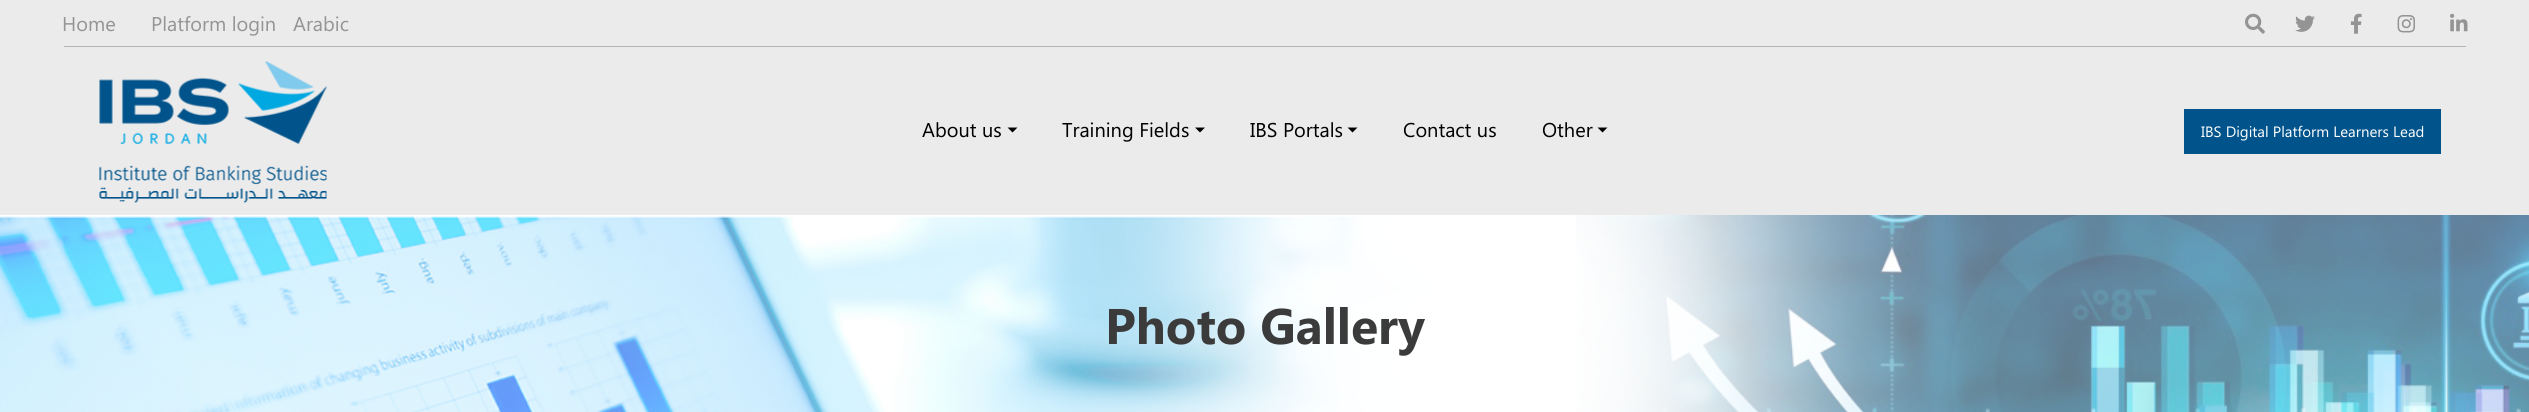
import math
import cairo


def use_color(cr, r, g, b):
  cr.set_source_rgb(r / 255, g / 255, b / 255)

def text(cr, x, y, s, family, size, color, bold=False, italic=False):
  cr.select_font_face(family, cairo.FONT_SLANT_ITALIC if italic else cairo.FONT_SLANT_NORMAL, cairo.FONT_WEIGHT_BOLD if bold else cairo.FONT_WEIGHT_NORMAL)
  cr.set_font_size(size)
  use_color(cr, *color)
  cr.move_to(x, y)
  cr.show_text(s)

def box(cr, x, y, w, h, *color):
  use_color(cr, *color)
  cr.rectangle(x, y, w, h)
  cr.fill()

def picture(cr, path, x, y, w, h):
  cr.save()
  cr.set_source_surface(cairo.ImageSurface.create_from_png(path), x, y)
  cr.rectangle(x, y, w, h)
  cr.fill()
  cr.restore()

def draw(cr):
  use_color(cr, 235, 235, 235)
  cr.paint()
  box(cr, 64, 46, 2402, 1, 181, 181, 181)
  picture(cr, "img_01.png", 2245, 13, 20, 21)
  picture(cr, "img_02.png", 2295, 15, 20, 17)
  picture(cr, "img_03.png", 2350, 13, 12, 21)
  picture(cr, "img_04.png", 2397, 15, 18, 18)
  picture(cr, "img_05.png", 2450, 13, 18, 19)
  picture(cr, "img_06.png", 99, 61, 228, 142)
  use_color(cr, 0, 0, 0)
  cr.new_path()
  cr.move_to(1007.5, 127.5)
  cr.line_to(1017.5, 127.5)
  cr.line_to(1012.5, 132.5)
  cr.close_path()
  cr.fill()
  cr.new_path()
  cr.move_to(1195, 127.5)
  cr.line_to(1205, 127.5)
  cr.line_to(1200, 132.5)
  cr.close_path()
  cr.fill()
  cr.new_path()
  cr.move_to(1347.5, 127.5)
  cr.line_to(1357.5, 127.5)
  cr.line_to(1352.5, 132.5)
  cr.close_path()
  cr.fill()
  cr.new_path()
  cr.move_to(1597.5, 127.5)
  cr.line_to(1607.5, 127.5)
  cr.line_to(1602.5, 132.5)
  cr.close_path()
  cr.fill()
  box(cr, 2184, 109, 257, 45, 1, 84, 139)
  picture(cr, "img_07.png", 0, 215, 2529, 197)
  text(cr, 62, 31, "Home", "Segoe UI", 20, (148, 148, 148))
  text(cr, 151, 31, "Platform login", "Segoe UI", 20, (148, 148, 148))
  text(cr, 293, 31, "Arabic", "Segoe UI", 20, (148, 148, 148))
  text(cr, 922, 137, "About us", "Segoe UI", 20, (0, 0, 0))
  text(cr, 1062, 137, "Training Fields", "Segoe UI", 20, (0, 0, 0))
  text(cr, 1250, 137, "IBS Portals", "Segoe UI", 20, (0, 0, 0))
  text(cr, 1403, 137, "Contact us", "Segoe UI", 20, (0, 0, 0))
  text(cr, 1542, 137, "Other", "Segoe UI", 20, (0, 0, 0))
  text(cr, 2201, 137, "IBS Digital Platform Learners Lead", "Segoe UI", 15, (255, 255, 255))
  text(cr, 1105, 344, "Photo Gallery", "Segoe UI", 50, (59, 59, 59), bold=True)


surface = cairo.ImageSurface(cairo.FORMAT_RGB24, 2529, 412)
cr = cairo.Context(surface)
options = cairo.FontOptions()
options.set_hint_metrics(cairo.HINT_METRICS_OFF)
options.set_hint_style(cairo.HINT_STYLE_NONE)
cr.set_font_options(options)
cr.set_miter_limit(4)
draw(cr)
surface.write_to_png("out.png")
